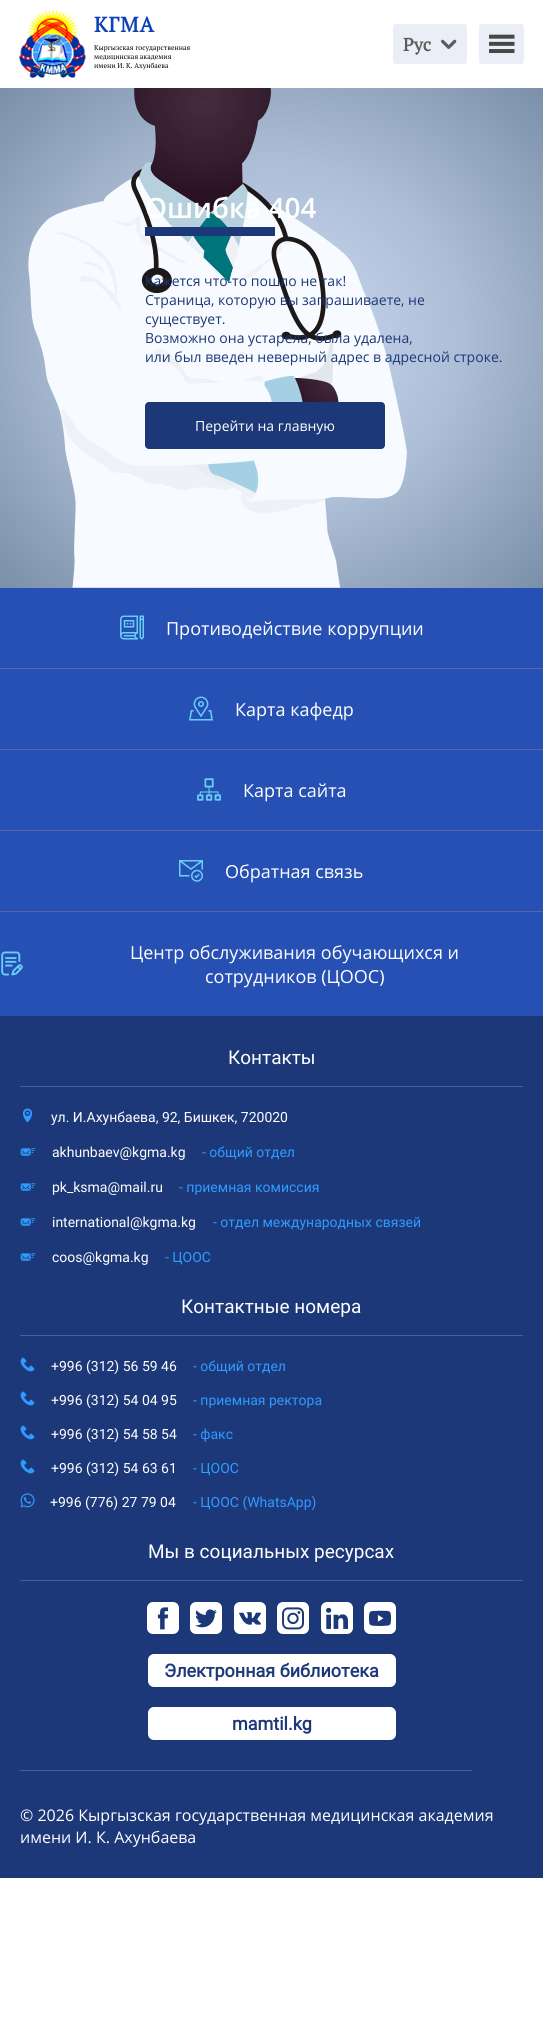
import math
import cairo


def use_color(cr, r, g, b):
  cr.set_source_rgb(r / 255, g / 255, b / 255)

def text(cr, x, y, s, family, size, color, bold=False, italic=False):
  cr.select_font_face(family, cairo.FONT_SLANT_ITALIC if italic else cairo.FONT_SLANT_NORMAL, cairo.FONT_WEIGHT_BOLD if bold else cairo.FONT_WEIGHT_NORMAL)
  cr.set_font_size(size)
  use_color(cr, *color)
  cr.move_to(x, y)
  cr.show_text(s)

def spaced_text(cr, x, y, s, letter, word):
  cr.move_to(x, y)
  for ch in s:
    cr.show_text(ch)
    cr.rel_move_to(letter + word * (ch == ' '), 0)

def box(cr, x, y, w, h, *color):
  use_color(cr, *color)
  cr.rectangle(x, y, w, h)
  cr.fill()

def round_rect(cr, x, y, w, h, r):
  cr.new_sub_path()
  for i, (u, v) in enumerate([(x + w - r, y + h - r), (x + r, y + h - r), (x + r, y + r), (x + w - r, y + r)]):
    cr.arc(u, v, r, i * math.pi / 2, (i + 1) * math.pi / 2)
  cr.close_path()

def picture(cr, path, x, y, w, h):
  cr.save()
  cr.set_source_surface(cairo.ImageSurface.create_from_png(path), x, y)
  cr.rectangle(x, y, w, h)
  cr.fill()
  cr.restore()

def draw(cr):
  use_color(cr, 255, 255, 255)
  cr.paint()
  picture(cr, "img_01.png", 19, 10, 67, 68)
  use_color(cr, 235, 237, 247)
  round_rect(cr, 393, 24, 74, 40, 3)
  cr.fill()
  picture(cr, "img_02.png", 441, 39, 16, 10)
  round_rect(cr, 479, 24, 45, 40, 3)
  cr.fill()
  picture(cr, "img_03.png", 489, 34, 26, 19)
  gradient = cairo.RadialGradient(0, 0, 0, 0, 0, 1)
  gradient.set_matrix(cairo.Matrix(1 / 384, 0, 0, 1 / 354, -1 * 272 / 384, -1 * 338 / 354))
  gradient.add_color_stop_rgba(0, 0.796, 0.855, 0.949, 1)
  gradient.add_color_stop_rgba(0.5, 0.675, 0.745, 0.839, 1)
  gradient.add_color_stop_rgba(1, 0.478, 0.561, 0.659, 1)
  cr.set_source(gradient)
  cr.rectangle(0, 88, 543, 500)
  cr.fill()
  picture(cr, "img_04.png", 28, 88, 379, 500)
  box(cr, 145, 227, 130, 9, 29, 56, 120)
  round_rect(cr, 145, 402, 240, 47, 4)
  cr.fill()
  box(cr, 0, 588, 543, 428, 38, 80, 179)
  picture(cr, "img_05.png", 120, 615, 24, 25)
  box(cr, 0, 668, 543, 1, 85, 105, 152)
  picture(cr, "img_06.png", 189, 696, 24, 25)
  box(cr, 0, 749, 543, 1, 85, 105, 152)
  picture(cr, "img_07.png", 197, 778, 24, 23)
  box(cr, 0, 830, 543, 1, 85, 105, 152)
  picture(cr, "img_08.png", 179, 860, 24, 22)
  box(cr, 0, 911, 543, 1, 85, 105, 152)
  picture(cr, "img_09.png", 1, 951, 22, 25)
  box(cr, 0, 1016, 543, 862, 29, 56, 120)
  box(cr, 20, 1086, 503, 1, 74, 96, 147)
  picture(cr, "img_10.png", 22, 1108, 11, 15)
  picture(cr, "img_11.png", 20, 1148, 16, 8)
  picture(cr, "img_11.png", 20, 1183, 16, 8)
  picture(cr, "img_11.png", 20, 1218, 16, 8)
  picture(cr, "img_11.png", 20, 1253, 16, 8)
  box(cr, 20, 1335, 503, 1, 74, 96, 147)
  picture(cr, "img_12.png", 20, 1357, 15, 15)
  picture(cr, "img_12.png", 20, 1391, 15, 15)
  picture(cr, "img_12.png", 20, 1425, 15, 15)
  picture(cr, "img_12.png", 20, 1459, 15, 15)
  picture(cr, "img_13.png", 20, 1493, 15, 15)
  box(cr, 20, 1580, 503, 1, 74, 96, 147)
  use_color(cr, 255, 255, 255)
  round_rect(cr, 147, 1602, 32, 32, 6)
  cr.fill()
  picture(cr, "img_14.png", 157, 1607, 12, 23)
  round_rect(cr, 190, 1602, 32, 32, 6)
  cr.fill()
  picture(cr, "img_15.png", 195, 1609, 22, 19)
  round_rect(cr, 234, 1602, 32, 32, 6)
  cr.fill()
  picture(cr, "img_16.png", 239, 1612, 22, 13)
  round_rect(cr, 277, 1602, 32, 32, 6)
  cr.fill()
  picture(cr, "img_17.png", 282, 1607, 22, 23)
  round_rect(cr, 321, 1602, 32, 32, 6)
  cr.fill()
  picture(cr, "img_18.png", 326, 1607, 22, 22)
  round_rect(cr, 364, 1602, 32, 32, 6)
  cr.fill()
  picture(cr, "img_19.png", 369, 1610, 22, 16)
  round_rect(cr, 148, 1654, 248, 33, 6)
  cr.fill()
  round_rect(cr, 148, 1707, 248, 33, 6)
  cr.fill()
  box(cr, 20, 1770, 452, 1, 74, 96, 147)
  cr.select_font_face("PT Serif", cairo.FONT_SLANT_NORMAL, cairo.FONT_WEIGHT_BOLD)
  cr.set_font_size(21)
  use_color(cr, 14, 65, 185)
  spaced_text(cr, 94, 32, "КГМА", 1, 0)
  text(cr, 94, 50, "Кыргызская государственная", "PT Serif", 7, (0, 0, 0))
  text(cr, 94, 59, "медицинская академия", "PT Serif", 7, (0, 0, 0))
  text(cr, 94, 68, "имени И. К. Ахунбаева", "PT Serif", 7, (0, 0, 0))
  text(cr, 403, 51, "Рус", "PT Serif", 18, (92, 92, 92), bold=True)
  text(cr, 145, 218, "Ошибка 404", "Open Sans SemiBold", 28, (255, 255, 255))
  text(cr, 145, 286, "Кажется что-то пошло не так!", "Open Sans", 14, (29, 56, 120))
  text(cr, 145, 305, "Страница, которую вы запрашиваете, не", "Open Sans", 14, (29, 56, 120))
  text(cr, 145, 324, "существует.", "Open Sans", 14, (29, 56, 120))
  text(cr, 145, 343, "Возможно она устарела, была удалена,", "Open Sans", 14, (29, 56, 120))
  text(cr, 145, 362, "или был введен неверный адрес в адресной строке.", "Open Sans", 14, (29, 56, 120))
  text(cr, 195, 431, "Перейти на главную", "Open Sans", 14, (255, 255, 255))
  text(cr, 166, 635, "Противодействие коррупции", "Open Sans", 18, (255, 255, 255))
  text(cr, 235, 716, "Карта кафедр", "Open Sans", 18, (255, 255, 255))
  text(cr, 243, 797, "Карта сайта", "Open Sans", 18, (255, 255, 255))
  text(cr, 225, 878, "Обратная связь", "Open Sans", 18, (255, 255, 255))
  text(cr, 130, 959, "Центр обслуживания обучающихся и", "Open Sans", 18, (255, 255, 255))
  text(cr, 205, 983, "сотрудников (ЦООС)", "Open Sans", 18, (255, 255, 255))
  text(cr, 228, 1064, "Контакты", "Roboto", 19, (255, 255, 255))
  text(cr, 51, 1122, "ул. И.Ахунбаева, 92, Бишкек, 720020", "Roboto", 14, (255, 255, 255))
  text(cr, 52, 1157, "akhunbaev@kgma.kg", "Roboto", 14, (255, 255, 255))
  text(cr, 202, 1157, "- общий отдел", "Roboto", 14, (47, 155, 254))
  text(cr, 52, 1192, "pk_ksma@mail.ru", "Roboto", 14, (255, 255, 255))
  text(cr, 179, 1192, "- приемная комиссия", "Roboto", 14, (47, 155, 254))
  text(cr, 52, 1227, "international@kgma.kg", "Roboto", 14, (255, 255, 255))
  text(cr, 213, 1227, "- отдел международных связей", "Roboto", 14, (47, 155, 254))
  text(cr, 52, 1262, "coos@kgma.kg", "Roboto", 14, (255, 255, 255))
  text(cr, 165, 1262, "- ЦООС", "Roboto", 14, (47, 155, 254))
  text(cr, 181, 1313, "Контактные номера", "Roboto", 19, (255, 255, 255))
  text(cr, 51, 1371, "+996 (312) 56 59 46", "Roboto", 14, (255, 255, 255))
  text(cr, 193, 1371, "- общий отдел", "Roboto", 14, (47, 155, 254))
  text(cr, 51, 1405, "+996 (312) 54 04 95", "Roboto", 14, (255, 255, 255))
  text(cr, 193, 1405, "- приемная ректора", "Roboto", 14, (47, 155, 254))
  text(cr, 51, 1439, "+996 (312) 54 58 54", "Roboto", 14, (255, 255, 255))
  text(cr, 193, 1439, "- факс", "Roboto", 14, (47, 155, 254))
  text(cr, 51, 1473, "+996 (312) 54 63 61", "Roboto", 14, (255, 255, 255))
  text(cr, 193, 1473, "- ЦООС", "Roboto", 14, (47, 155, 254))
  text(cr, 50, 1507, "+996 (776) 27 79 04", "Roboto", 14, (255, 255, 255))
  text(cr, 193, 1507, "- ЦООС (WhatsApp)", "Roboto", 14, (47, 155, 254))
  text(cr, 148, 1558, "Мы в социальных ресурсах", "Roboto", 19, (255, 255, 255))
  text(cr, 164, 1677, "Электронная библиотека", "Roboto", 18, (29, 56, 120), bold=True)
  text(cr, 232, 1730, "mamtil.kg", "Roboto", 18, (29, 56, 120), bold=True)
  text(cr, 20, 1821, "© 2026 Кыргызская государственная медицинская академия", "Open Sans", 16, (255, 255, 255))
  text(cr, 20, 1843, "имени И. К. Ахунбаева", "Open Sans", 16, (255, 255, 255))


surface = cairo.ImageSurface(cairo.FORMAT_RGB24, 543, 2028)
cr = cairo.Context(surface)
options = cairo.FontOptions()
options.set_hint_metrics(cairo.HINT_METRICS_OFF)
options.set_hint_style(cairo.HINT_STYLE_NONE)
cr.set_font_options(options)
cr.set_miter_limit(4)
draw(cr)
surface.write_to_png("out.png")
